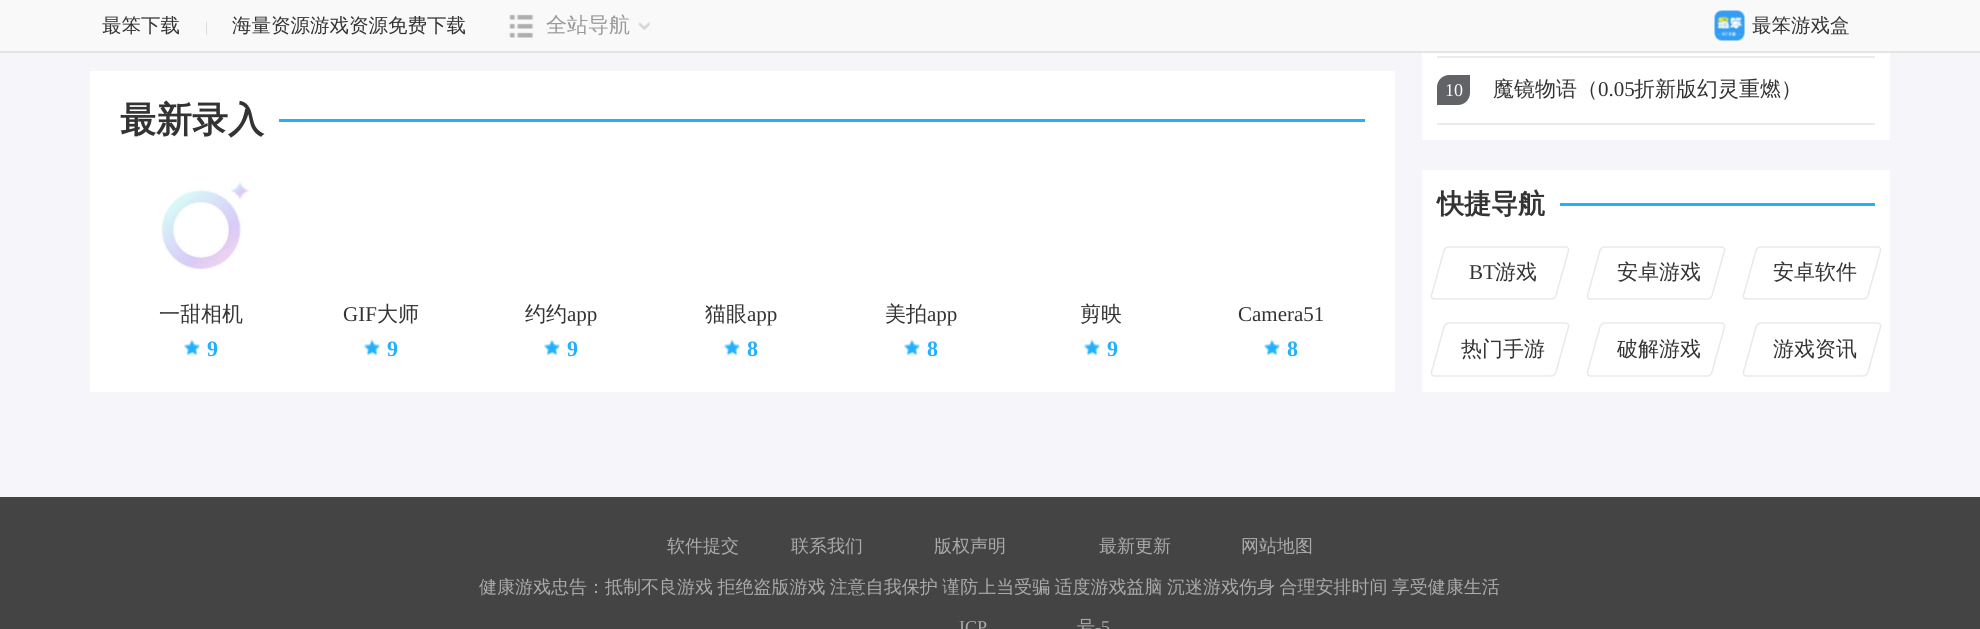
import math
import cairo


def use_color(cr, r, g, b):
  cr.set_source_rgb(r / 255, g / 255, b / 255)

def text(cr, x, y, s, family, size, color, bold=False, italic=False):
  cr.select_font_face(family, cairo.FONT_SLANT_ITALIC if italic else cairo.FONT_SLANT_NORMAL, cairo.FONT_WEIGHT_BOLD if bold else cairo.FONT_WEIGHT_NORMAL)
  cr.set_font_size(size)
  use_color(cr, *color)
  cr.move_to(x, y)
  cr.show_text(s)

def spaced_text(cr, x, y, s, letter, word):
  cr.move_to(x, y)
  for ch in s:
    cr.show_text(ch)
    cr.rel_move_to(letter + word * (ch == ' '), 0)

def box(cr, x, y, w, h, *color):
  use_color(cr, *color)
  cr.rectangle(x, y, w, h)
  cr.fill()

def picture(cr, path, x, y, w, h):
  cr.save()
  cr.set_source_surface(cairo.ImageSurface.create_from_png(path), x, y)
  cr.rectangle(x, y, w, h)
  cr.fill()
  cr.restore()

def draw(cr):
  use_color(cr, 246, 245, 250)
  cr.paint()
  box(cr, 0, 0, 1980, 51, 249, 249, 249)
  box(cr, 0, 51, 1980, 2, 227, 227, 227)
  picture(cr, "img_01.png", 509, 14, 25, 24)
  picture(cr, "img_02.png", 638, 22, 12, 8)
  picture(cr, "img_03.png", 1714, 10, 31, 31)
  box(cr, 90, 71, 1305, 321, 255, 255, 255)
  box(cr, 279, 119, 1086, 3, 34, 176, 250)
  picture(cr, "img_04.png", 161, 181, 89, 89)
  picture(cr, "img_05.png", 184, 339, 16, 17)
  picture(cr, "img_06.png", 364, 339, 16, 17)
  picture(cr, "img_05.png", 544, 339, 16, 17)
  picture(cr, "img_06.png", 724, 339, 16, 17)
  picture(cr, "img_05.png", 904, 339, 16, 17)
  picture(cr, "img_06.png", 1084, 339, 16, 17)
  picture(cr, "img_07.png", 1264, 339, 16, 17)
  box(cr, 1422, 53, 468, 87, 255, 255, 255)
  box(cr, 1437, 56, 438, 2, 235, 235, 235)
  box(cr, 1437, 123, 438, 2, 235, 235, 235)
  use_color(cr, 97, 99, 102)
  cr.new_path()
  cr.move_to(1449, 75)
  cr.line_to(1470, 75)
  cr.line_to(1470, 93)
  cr.curve_to(1470, 99.5, 1464.5, 105, 1458, 105)
  cr.line_to(1437, 105)
  cr.line_to(1437, 87)
  cr.curve_to(1437, 80.5, 1442.5, 75, 1449, 75)
  cr.close_path()
  cr.fill()
  box(cr, 1422, 170, 468, 222, 255, 255, 255)
  box(cr, 1560, 203, 315, 3, 34, 176, 250)
  cr.new_path()
  cr.move_to(1448.5, 247)
  cr.line_to(1565.5, 247)
  cr.curve_to(1567.5, 247, 1569, 248.5, 1568.5, 250.5)
  cr.line_to(1556, 295.5)
  cr.curve_to(1555.5, 297.5, 1553.5, 299, 1551.5, 299)
  cr.line_to(1434.5, 299)
  cr.curve_to(1432.5, 299, 1431, 297.5, 1431.5, 295.5)
  cr.line_to(1444, 250.5)
  cr.curve_to(1444.5, 248.5, 1446.5, 247, 1448.5, 247)
  cr.close_path()
  use_color(cr, 233, 233, 233)
  cr.set_line_width(1.5)
  cr.stroke()
  cr.new_path()
  cr.move_to(1604.5, 247)
  cr.line_to(1721.5, 247)
  cr.curve_to(1723.5, 247, 1725, 248.5, 1724.5, 250.5)
  cr.line_to(1712, 295.5)
  cr.curve_to(1711.5, 297.5, 1709.5, 299, 1707.5, 299)
  cr.line_to(1590.5, 299)
  cr.curve_to(1588.5, 299, 1587, 297.5, 1587.5, 295.5)
  cr.line_to(1600, 250.5)
  cr.curve_to(1600.5, 248.5, 1602.5, 247, 1604.5, 247)
  cr.close_path()
  cr.stroke()
  cr.new_path()
  cr.move_to(1760.5, 247)
  cr.line_to(1877.5, 247)
  cr.curve_to(1879.5, 247, 1881, 248.5, 1880.5, 250.5)
  cr.line_to(1868, 295.5)
  cr.curve_to(1867.5, 297.5, 1865.5, 299, 1863.5, 299)
  cr.line_to(1746.5, 299)
  cr.curve_to(1744.5, 299, 1743, 297.5, 1743.5, 295.5)
  cr.line_to(1756, 250.5)
  cr.curve_to(1756.5, 248.5, 1758.5, 247, 1760.5, 247)
  cr.close_path()
  cr.stroke()
  cr.new_path()
  cr.move_to(1448.5, 323)
  cr.line_to(1565.5, 323)
  cr.curve_to(1567.5, 323, 1569, 325, 1568.5, 327)
  cr.line_to(1556, 372)
  cr.curve_to(1555.5, 374, 1553.5, 376, 1551.5, 376)
  cr.line_to(1434.5, 376)
  cr.curve_to(1432.5, 376, 1431, 374, 1431.5, 372)
  cr.line_to(1444, 327)
  cr.curve_to(1444.5, 325, 1446.5, 323, 1448.5, 323)
  cr.close_path()
  cr.stroke()
  cr.new_path()
  cr.move_to(1604.5, 323)
  cr.line_to(1721.5, 323)
  cr.curve_to(1723.5, 323, 1725, 325, 1724.5, 327)
  cr.line_to(1712, 372)
  cr.curve_to(1711.5, 374, 1709.5, 376, 1707.5, 376)
  cr.line_to(1590.5, 376)
  cr.curve_to(1588.5, 376, 1587, 374, 1587.5, 372)
  cr.line_to(1600, 327)
  cr.curve_to(1600.5, 325, 1602.5, 323, 1604.5, 323)
  cr.close_path()
  cr.stroke()
  cr.new_path()
  cr.move_to(1760.5, 323)
  cr.line_to(1877.5, 323)
  cr.curve_to(1879.5, 323, 1881, 325, 1880.5, 327)
  cr.line_to(1868, 372)
  cr.curve_to(1867.5, 374, 1865.5, 376, 1863.5, 376)
  cr.line_to(1746.5, 376)
  cr.curve_to(1744.5, 376, 1743, 374, 1743.5, 372)
  cr.line_to(1756, 327)
  cr.curve_to(1756.5, 325, 1758.5, 323, 1760.5, 323)
  cr.close_path()
  cr.stroke()
  box(cr, 0, 497, 1980, 132, 68, 68, 68)
  text(cr, 102, 32, "最笨下载", "WenQuanYi Zen Hei Medium", 19.5, (51, 51, 51))
  text(cr, 205, 32, "|", "Liberation Serif", 15, (211, 211, 211))
  text(cr, 232, 32, "海量资源游戏资源免费下载", "WenQuanYi Zen Hei Medium", 19.5, (51, 51, 51))
  text(cr, 546, 32, "全站导航", "WenQuanYi Zen Hei Medium", 21, (153, 153, 153))
  text(cr, 1752, 32, "最笨游戏盒", "WenQuanYi Zen Hei Medium", 19.5, (51, 51, 51))
  text(cr, 120, 132, "最新录入", "WenQuanYi Zen Hei", 36, (51, 51, 51), bold=True)
  text(cr, 159, 321, "一甜相机", "WenQuanYi Zen Hei Medium", 21, (51, 51, 51))
  text(cr, 207, 356, "9", "Liberation Serif", 22, (34, 176, 250), bold=True)
  text(cr, 343, 321, "GIF", "Liberation Serif", 21, (51, 51, 51))
  text(cr, 377, 321, "大师", "WenQuanYi Zen Hei Medium", 21, (51, 51, 51))
  text(cr, 387, 356, "9", "Liberation Serif", 22, (34, 176, 250), bold=True)
  text(cr, 525, 321, "约约", "WenQuanYi Zen Hei Medium", 21, (51, 51, 51))
  text(cr, 567, 321, "app", "Liberation Serif", 21, (51, 51, 51))
  text(cr, 567, 356, "9", "Liberation Serif", 22, (34, 176, 250), bold=True)
  text(cr, 705, 321, "猫眼", "WenQuanYi Zen Hei Medium", 21, (51, 51, 51))
  text(cr, 747, 321, "app", "Liberation Serif", 21, (51, 51, 51))
  text(cr, 747, 356, "8", "Liberation Serif", 22, (34, 176, 250), bold=True)
  text(cr, 885, 321, "美拍", "WenQuanYi Zen Hei Medium", 21, (51, 51, 51))
  text(cr, 927, 321, "app", "Liberation Serif", 21, (51, 51, 51))
  text(cr, 927, 356, "8", "Liberation Serif", 22, (34, 176, 250), bold=True)
  text(cr, 1080, 321, "剪映", "WenQuanYi Zen Hei Medium", 21, (51, 51, 51))
  text(cr, 1107, 356, "9", "Liberation Serif", 22, (34, 176, 250), bold=True)
  text(cr, 1238, 321, "Camera51", "Liberation Serif", 21, (51, 51, 51))
  text(cr, 1287, 356, "8", "Liberation Serif", 22, (34, 176, 250), bold=True)
  text(cr, 1445, 96, "10", "Liberation Serif", 18, (255, 255, 255))
  text(cr, 1493, 96, "魔镜物语（", "WenQuanYi Zen Hei Medium", 21, (51, 51, 51))
  text(cr, 1598, 96, "0.05", "Liberation Serif", 21, (51, 51, 51))
  text(cr, 1634, 96, "折新版幻灵重燃）", "WenQuanYi Zen Hei Medium", 21, (51, 51, 51))
  text(cr, 1437, 213, "快捷导航", "WenQuanYi Zen Hei", 27, (51, 51, 51), bold=True)
  text(cr, 1469, 279, "BT", "Liberation Serif", 21, (51, 51, 51))
  text(cr, 1495, 279, "游戏", "WenQuanYi Zen Hei Medium", 21, (51, 51, 51))
  text(cr, 1617, 279, "安卓游戏", "WenQuanYi Zen Hei Medium", 21, (51, 51, 51))
  text(cr, 1773, 279, "安卓软件", "WenQuanYi Zen Hei Medium", 21, (51, 51, 51))
  text(cr, 1461, 356, "热门手游", "WenQuanYi Zen Hei Medium", 21, (51, 51, 51))
  text(cr, 1617, 356, "破解游戏", "WenQuanYi Zen Hei Medium", 21, (51, 51, 51))
  text(cr, 1773, 356, "游戏资讯", "WenQuanYi Zen Hei Medium", 21, (51, 51, 51))
  text(cr, 667, 552, "软件提交", "WenQuanYi Zen Hei Medium", 18, (171, 171, 171))
  text(cr, 791, 552, "联系我们", "WenQuanYi Zen Hei Medium", 18, (171, 171, 171))
  text(cr, 934, 552, "版权声明", "WenQuanYi Zen Hei Medium", 18, (171, 171, 171))
  text(cr, 1099, 552, "最新更新", "WenQuanYi Zen Hei Medium", 18, (171, 171, 171))
  text(cr, 1241, 552, "网站地图", "WenQuanYi Zen Hei Medium", 18, (171, 171, 171))
  spaced_text(cr, 479, 593, "健康游戏忠告：抵制不良游戏 拒绝盗版游戏 注意自我保护 谨防上当受骗 适度游戏益脑 沉迷游戏伤身 合理安排时间 享受健康生活", 0, -1)
  text(cr, 959, 633, "ICP", "Liberation Serif", 18, (171, 171, 171))
  text(cr, 1077, 633, "号", "WenQuanYi Zen Hei Medium", 18, (171, 171, 171))
  text(cr, 1095, 633, "-5", "Liberation Serif", 18, (171, 171, 171))


surface = cairo.ImageSurface(cairo.FORMAT_RGB24, 1980, 629)
cr = cairo.Context(surface)
options = cairo.FontOptions()
options.set_hint_metrics(cairo.HINT_METRICS_OFF)
options.set_hint_style(cairo.HINT_STYLE_NONE)
cr.set_font_options(options)
cr.set_miter_limit(4)
draw(cr)
surface.write_to_png("out.png")
